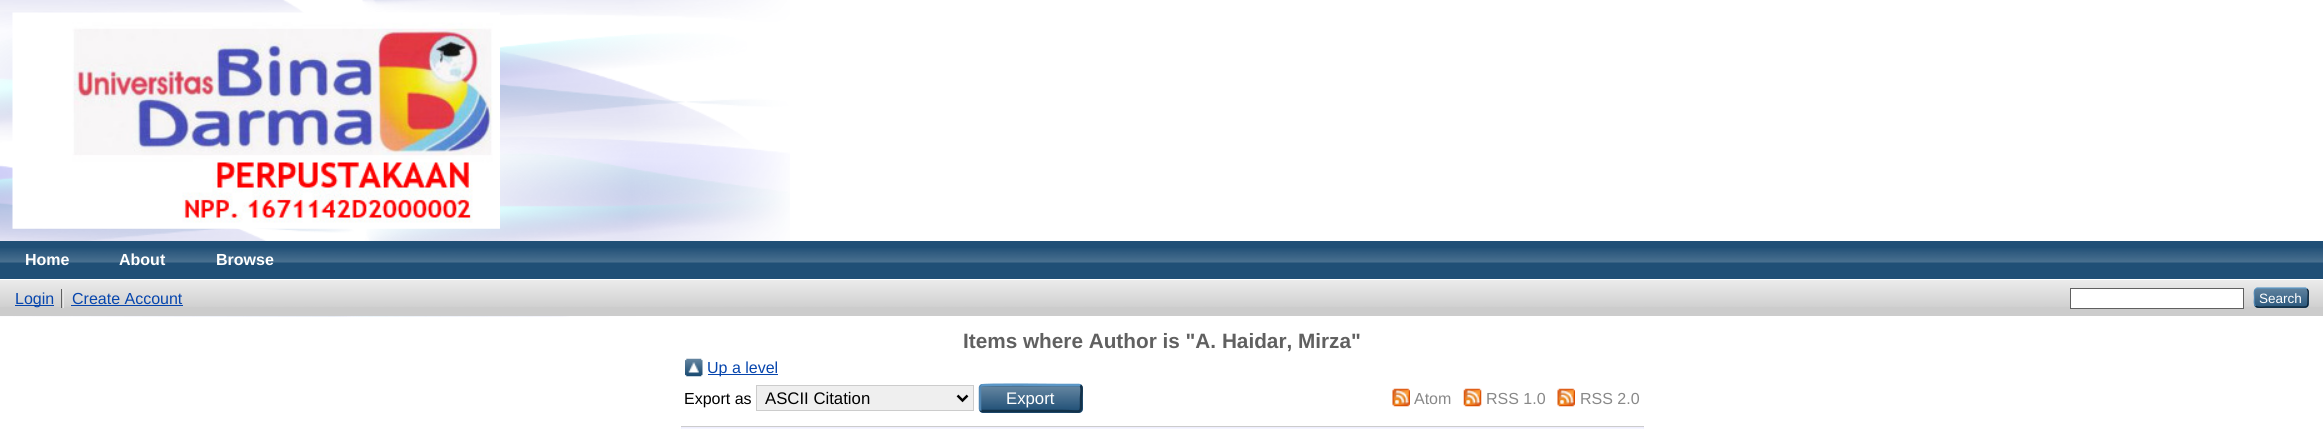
import math
import cairo


def use_color(cr, r, g, b):
  cr.set_source_rgb(r / 255, g / 255, b / 255)

def text(cr, x, y, s, family, size, color, bold=False, italic=False):
  cr.select_font_face(family, cairo.FONT_SLANT_ITALIC if italic else cairo.FONT_SLANT_NORMAL, cairo.FONT_WEIGHT_BOLD if bold else cairo.FONT_WEIGHT_NORMAL)
  cr.set_font_size(size)
  use_color(cr, *color)
  cr.move_to(x, y)
  cr.show_text(s)

def box(cr, x, y, w, h, *color):
  use_color(cr, *color)
  cr.rectangle(x, y, w, h)
  cr.fill()

def round_rect(cr, x, y, w, h, r):
  cr.new_sub_path()
  for i, (u, v) in enumerate([(x + w - r, y + h - r), (x + r, y + h - r), (x + r, y + r), (x + w - r, y + r)]):
    cr.arc(u, v, r, i * math.pi / 2, (i + 1) * math.pi / 2)
  cr.close_path()

def picture(cr, path, x, y, w, h):
  cr.save()
  cr.set_source_surface(cairo.ImageSurface.create_from_png(path), x, y)
  cr.rectangle(x, y, w, h)
  cr.fill()
  cr.restore()

def draw(cr):
  use_color(cr, 255, 255, 255)
  cr.paint()
  picture(cr, "img_01.png", 0, 0, 790, 317)
  picture(cr, "img_02.png", 12, 12, 488, 217)
  box(cr, 0, 241, 2323, 38, 32, 79, 118)
  picture(cr, "img_03.png", 0, 248, 2323, 15)
  box(cr, 0, 279, 370, 1, 255, 255, 255)
  box(cr, 0, 280, 2323, 36, 204, 204, 204)
  picture(cr, "img_04.png", 0, 280, 2323, 27)
  box(cr, 61, 289, 1, 19, 96, 96, 96)
  box(cr, 15, 305, 39, 1, 6, 69, 173)
  box(cr, 63, 289, 1, 19, 232, 232, 232)
  box(cr, 71, 305, 112, 1, 6, 69, 173)
  use_color(cr, 255, 255, 255)
  cr.rectangle(2070.5, 288.5, 173, 20)
  cr.fill_preserve()
  use_color(cr, 96, 96, 96)
  cr.set_line_width(1)
  cr.stroke()
  use_color(cr, 31, 79, 118)
  round_rect(cr, 2254, 288, 55, 20, 4)
  cr.fill()
  picture(cr, "img_05.png", 2254, 288, 55, 19)
  cr.new_path()
  cr.move_to(2255.5, 289)
  cr.line_to(2257, 288)
  cr.line_to(2305.5, 288)
  cr.line_to(2307, 289)
  use_color(cr, 91, 151, 199)
  cr.set_line_width(1.2)
  cr.stroke()
  cr.new_path()
  cr.move_to(2307, 289)
  cr.curve_to(2309, 291, 2308, 295, 2308, 297.5)
  cr.curve_to(2308, 308.5, 2308.5, 307, 2297, 307)
  cr.line_to(2265.5, 307)
  cr.curve_to(2265, 307, 2257.5, 308, 2255.5, 306)
  use_color(cr, 13, 33, 49)
  cr.stroke()
  cr.new_path()
  cr.move_to(2255.5, 306)
  cr.curve_to(2253.5, 304, 2254.5, 299.5, 2254.5, 297.5)
  cr.curve_to(2254.5, 295.5, 2253.5, 291, 2255.5, 289)
  use_color(cr, 82, 135, 179)
  cr.stroke()
  picture(cr, "img_06.png", 685, 358, 18, 19)
  box(cr, 708, 374, 70, 1, 6, 69, 173)
  use_color(cr, 239, 239, 239)
  cr.rectangle(756.5, 385.5, 217, 25)
  cr.fill_preserve()
  use_color(cr, 204, 204, 204)
  cr.set_line_width(1)
  cr.stroke()
  cr.new_path()
  cr.move_to(957.5, 395.5)
  cr.line_to(962.5, 400.5)
  cr.line_to(967.5, 395.5)
  use_color(cr, 0, 0, 0)
  cr.set_line_width(2.5)
  cr.stroke()
  use_color(cr, 31, 79, 118)
  round_rect(cr, 979, 384, 104, 29, 4)
  cr.fill()
  picture(cr, "img_07.png", 979, 386, 104, 24)
  cr.new_path()
  cr.move_to(980.5, 385.5)
  cr.line_to(981, 385.5)
  cr.curve_to(983, 384, 1054.5, 385, 1062.5, 385)
  cr.line_to(1079, 385)
  cr.line_to(1080.5, 385.5)
  use_color(cr, 91, 151, 199)
  cr.stroke()
  cr.new_path()
  cr.move_to(1080.5, 385.5)
  cr.curve_to(1082.5, 387.5, 1081, 395.5, 1081, 398)
  cr.curve_to(1081, 415.5, 1083, 411, 1062.5, 411)
  cr.line_to(982.5, 411)
  cr.line_to(980.5, 410.5)
  use_color(cr, 19, 50, 74)
  cr.stroke()
  cr.new_path()
  cr.move_to(980.5, 410.5)
  cr.curve_to(980.5, 410, 980, 409.5, 980, 409)
  cr.line_to(980, 387.5)
  cr.curve_to(980, 387, 980.5, 386, 980.5, 385.5)
  use_color(cr, 82, 135, 179)
  cr.stroke()
  picture(cr, "img_08.png", 1392, 388, 18, 19)
  picture(cr, "img_09.png", 1463, 388, 19, 19)
  picture(cr, "img_10.png", 1557, 388, 18, 19)
  box(cr, 681, 427, 963, 2, 232, 232, 255)
  picture(cr, "img_11.png", 681, 427, 963, 2)
  box(cr, 681, 426, 963, 1, 204, 204, 204)
  text(cr, 25, 265, "Home", "Liberation Sans", 16, (255, 255, 255), bold=True)
  text(cr, 119, 265, "About", "Liberation Sans", 16, (255, 255, 255), bold=True)
  text(cr, 216, 265, "Browse", "Liberation Sans", 16, (255, 255, 255), bold=True)
  text(cr, 15, 304, "Login", "Liberation Sans", 16, (6, 69, 173))
  text(cr, 72, 304, "Create Account", "Liberation Sans", 16, (6, 69, 173))
  text(cr, 2259, 303, "Search", "Liberation Sans", 13.5, (255, 255, 255))
  text(cr, 963, 348, "Items where Author is \"A. Haidar, Mirza", "Liberation Sans", 20.75, (96, 96, 96), bold=True)
  text(cr, 1351, 348, "\"", "Liberation Sans", 20.75, (96, 96, 96), bold=True)
  text(cr, 707, 373, "Up a level", "Liberation Sans", 16, (6, 69, 173))
  text(cr, 684, 404, "Export as", "Liberation Sans", 16, (0, 0, 0))
  text(cr, 765, 404, "ASCII Citation", "Liberation Sans", 16.75, (0, 0, 0))
  text(cr, 1006, 404, "Export", "Liberation Sans", 16.75, (255, 255, 255))
  text(cr, 1414, 404, "Atom", "Liberation Sans", 16, (136, 136, 136))
  text(cr, 1486, 404, "RSS 1.0", "Liberation Sans", 16, (136, 136, 136))
  text(cr, 1580, 404, "RSS 2.0", "Liberation Sans", 16, (136, 136, 136))


surface = cairo.ImageSurface(cairo.FORMAT_RGB24, 2323, 429)
cr = cairo.Context(surface)
options = cairo.FontOptions()
options.set_hint_metrics(cairo.HINT_METRICS_OFF)
options.set_hint_style(cairo.HINT_STYLE_NONE)
cr.set_font_options(options)
cr.set_miter_limit(4)
draw(cr)
surface.write_to_png("out.png")
